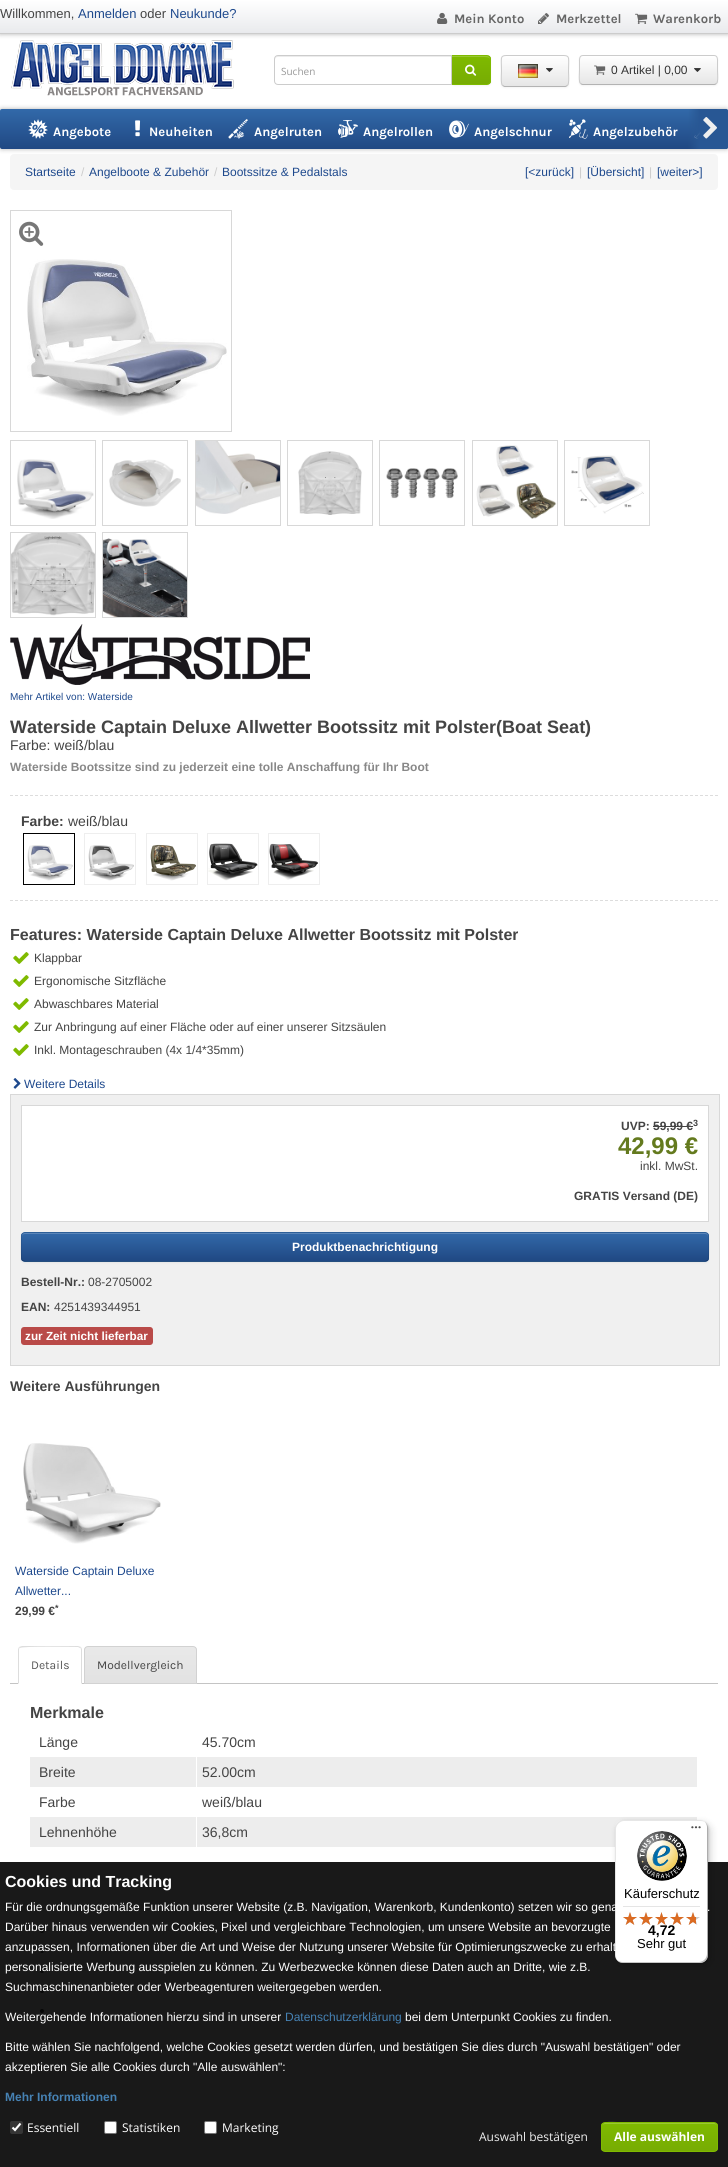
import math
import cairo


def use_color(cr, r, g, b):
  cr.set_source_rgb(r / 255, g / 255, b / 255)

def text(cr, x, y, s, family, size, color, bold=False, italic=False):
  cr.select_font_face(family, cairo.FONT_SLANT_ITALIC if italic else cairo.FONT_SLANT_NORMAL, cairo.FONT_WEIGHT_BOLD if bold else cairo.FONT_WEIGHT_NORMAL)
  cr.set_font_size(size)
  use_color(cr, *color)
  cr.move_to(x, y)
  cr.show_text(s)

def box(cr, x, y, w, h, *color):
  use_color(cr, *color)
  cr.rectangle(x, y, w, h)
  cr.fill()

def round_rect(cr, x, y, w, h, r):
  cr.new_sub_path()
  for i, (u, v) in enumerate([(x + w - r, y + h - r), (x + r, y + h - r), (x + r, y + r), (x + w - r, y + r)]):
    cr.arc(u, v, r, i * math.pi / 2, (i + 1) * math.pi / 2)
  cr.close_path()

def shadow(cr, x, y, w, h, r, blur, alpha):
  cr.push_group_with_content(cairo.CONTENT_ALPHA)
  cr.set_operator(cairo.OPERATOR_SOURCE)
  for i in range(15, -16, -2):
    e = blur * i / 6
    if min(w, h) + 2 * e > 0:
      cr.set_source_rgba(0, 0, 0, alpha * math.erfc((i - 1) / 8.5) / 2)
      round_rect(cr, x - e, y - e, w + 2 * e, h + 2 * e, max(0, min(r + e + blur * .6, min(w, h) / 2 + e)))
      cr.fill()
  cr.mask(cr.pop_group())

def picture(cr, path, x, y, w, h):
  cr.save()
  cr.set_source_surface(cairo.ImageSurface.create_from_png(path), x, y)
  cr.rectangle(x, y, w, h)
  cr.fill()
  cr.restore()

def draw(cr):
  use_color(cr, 255, 255, 255)
  cr.paint()
  picture(cr, "img_04.png", 11, 40, 223, 56)
  use_color(cr, 0, 0, 0)
  shadow(cr, 0, 0, 728, 34, 0, 2.5, 0.3)
  gradient = cairo.LinearGradient(364, 0, 364, 33)
  gradient.add_color_stop_rgba(0, 1, 1, 1, 1)
  gradient.add_color_stop_rgba(1, 0.914, 0.918, 0.929, 1)
  cr.set_source(gradient)
  cr.rectangle(0, 0, 728, 33)
  cr.fill()
  box(cr, 0, 33, 728, 1, 204, 204, 204)
  picture(cr, "img_01.png", 437, 12, 11, 12)
  picture(cr, "img_02.png", 538, 13, 11, 11)
  picture(cr, "img_03.png", 635, 13, 13, 11)
  use_color(cr, 0, 0, 0)
  shadow(cr, 451, 56, 40, 30, 4, 1, 0.05)
  cr.save()
  cr.new_path()
  cr.move_to(451, 55)
  cr.line_to(487, 55)
  cr.curve_to(489, 55, 491, 57, 491, 59)
  cr.line_to(491, 81)
  cr.curve_to(491, 83, 489, 85, 487, 85)
  cr.line_to(451, 85)
  cr.close_path()
  cr.clip()
  gradient = cairo.LinearGradient(471, 56, 471, 84)
  gradient.add_color_stop_rgba(0, 0.498, 0.729, 0, 1)
  gradient.add_color_stop_rgba(1, 0.467, 0.675, 0.012, 1)
  cr.set_source(gradient)
  cr.rectangle(452, 56, 39, 28)
  cr.fill()
  cr.restore()
  use_color(cr, 153, 200, 51)
  cr.new_path()
  cr.move_to(452, 57)
  cr.line_to(481, 57)
  cr.curve_to(487, 57, 489, 57, 490, 59)
  cr.curve_to(490, 57.5, 488.5, 56, 487, 56)
  cr.line_to(452, 56)
  cr.close_path()
  cr.fill()
  cr.new_path()
  cr.move_to(451.5, 55.5)
  cr.line_to(487, 55.5)
  cr.curve_to(489, 55.5, 490.5, 57, 490.5, 59)
  cr.line_to(490.5, 81)
  cr.curve_to(490.5, 83, 489, 84.5, 487, 84.5)
  cr.line_to(451.5, 84.5)
  cr.close_path()
  use_color(cr, 127, 186, 0)
  cr.set_line_width(1)
  cr.stroke()
  use_color(cr, 255, 255, 255)
  cr.new_path()
  cr.move_to(278, 55)
  cr.line_to(452, 55)
  cr.line_to(452, 85)
  cr.line_to(278, 85)
  cr.curve_to(276, 85, 274, 83, 274, 81)
  cr.line_to(274, 59)
  cr.curve_to(274, 57, 276, 55, 278, 55)
  cr.close_path()
  cr.fill()
  use_color(cr, 236, 236, 236)
  cr.new_path()
  cr.move_to(278, 57)
  cr.line_to(451, 57)
  cr.line_to(451, 56)
  cr.line_to(277, 56)
  cr.curve_to(275, 57, 275, 58, 275, 60)
  cr.curve_to(275, 58, 276, 57, 278, 57)
  cr.close_path()
  cr.fill()
  cr.new_path()
  cr.move_to(278, 55.5)
  cr.line_to(451.5, 55.5)
  cr.line_to(451.5, 84.5)
  cr.line_to(278, 84.5)
  cr.curve_to(276, 84.5, 274.5, 83, 274.5, 81)
  cr.line_to(274.5, 59)
  cr.curve_to(274.5, 57, 276, 55.5, 278, 55.5)
  cr.close_path()
  use_color(cr, 204, 204, 204)
  cr.stroke()
  picture(cr, "img_05.png", 465, 64, 12, 12)
  use_color(cr, 0, 0, 0)
  shadow(cr, 501, 56, 68, 32, 4, 1, 0.05)
  cr.save()
  round_rect(cr, 501, 55, 68, 32, 4)
  cr.clip()
  gradient = cairo.LinearGradient(535, 56, 535, 86)
  gradient.add_color_stop_rgba(0, 1, 1, 1, 1)
  gradient.add_color_stop_rgba(1, 0.902, 0.902, 0.902, 1)
  cr.set_source(gradient)
  cr.rectangle(501, 56, 68, 30)
  cr.fill()
  cr.restore()
  cr.new_path()
  cr.move_to(567.5, 85.5)
  cr.line_to(565.5, 86.5)
  cr.line_to(504.5, 86.5)
  cr.line_to(502.5, 85.5)
  use_color(cr, 179, 179, 179)
  cr.stroke()
  cr.new_path()
  cr.move_to(502.5, 85.5)
  cr.curve_to(500.5, 83, 501.5, 74, 501.5, 71)
  cr.curve_to(501.5, 54, 498.5, 55.5, 515, 55.5)
  cr.line_to(555, 55.5)
  cr.curve_to(571.5, 55.5, 568.5, 54, 568.5, 71)
  cr.curve_to(568.5, 74, 569.5, 83, 567.5, 85.5)
  use_color(cr, 204, 204, 204)
  cr.stroke()
  picture(cr, "img_06.png", 518, 64, 20, 14)
  picture(cr, "img_07.png", 546, 68, 7, 4)
  use_color(cr, 0, 0, 0)
  shadow(cr, 579, 56, 139, 30, 4, 1, 0.05)
  cr.save()
  round_rect(cr, 579, 55, 139, 30, 4)
  cr.clip()
  gradient = cairo.LinearGradient(649, 56, 649, 84)
  gradient.add_color_stop_rgba(0, 1, 1, 1, 1)
  gradient.add_color_stop_rgba(1, 0.902, 0.902, 0.902, 1)
  cr.set_source(gradient)
  cr.rectangle(579, 56, 139, 28)
  cr.fill()
  cr.restore()
  cr.new_path()
  cr.move_to(716.5, 83.5)
  cr.curve_to(716, 84, 715, 84.5, 714, 84.5)
  cr.line_to(583, 84.5)
  cr.curve_to(582, 84.5, 581, 84, 580.5, 83.5)
  use_color(cr, 179, 179, 179)
  cr.stroke()
  cr.new_path()
  cr.move_to(580.5, 83.5)
  cr.curve_to(578.5, 81.5, 579.5, 73, 579.5, 70)
  cr.line_to(579.5, 62.5)
  cr.curve_to(579.5, 60, 579, 55.5, 583, 55.5)
  cr.line_to(714, 55.5)
  cr.curve_to(718, 55.5, 717.5, 60, 717.5, 62.5)
  cr.line_to(717.5, 70)
  cr.curve_to(717.5, 73, 718.5, 81.5, 716.5, 83.5)
  use_color(cr, 204, 204, 204)
  cr.stroke()
  picture(cr, "img_08.png", 594, 65, 12, 10)
  picture(cr, "img_09.png", 694, 68, 7, 4)
  use_color(cr, 0, 0, 0)
  shadow(cr, 0, 109, 728, 40, 2, 2.5, 0.3)
  gradient = cairo.LinearGradient(364, 109, 364, 149)
  gradient.add_color_stop_rgba(0, 0.196, 0.412, 0.663, 1)
  gradient.add_color_stop_rgba(1, 0.125, 0.282, 0.514, 1)
  cr.set_source(gradient)
  round_rect(cr, 0, 109, 728, 40, 2)
  cr.fill()
  picture(cr, "img_10.png", 28, 119, 20, 20)
  picture(cr, "img_11.png", 135, 120, 6, 17)
  picture(cr, "img_12.png", 228, 119, 20, 20)
  picture(cr, "img_13.png", 338, 120, 20, 18)
  picture(cr, "img_14.png", 449, 120, 20, 18)
  picture(cr, "img_15.png", 569, 119, 19, 20)
  picture(cr, "img_16.png", 694, 131, 6, 8)
  gradient = cairo.LinearGradient(688, 129, 728, 129)
  gradient.add_color_stop_rgba(0, 0.157, 0.341, 0.58, 0)
  gradient.add_color_stop_rgba(0.15, 0.157, 0.341, 0.58, 0.5)
  gradient.add_color_stop_rgba(0.3, 0.157, 0.341, 0.58, 1)
  gradient.add_color_stop_rgba(1, 0.157, 0.341, 0.58, 1)
  cr.set_source(gradient)
  cr.new_path()
  cr.move_to(688, 109)
  cr.line_to(726, 109)
  cr.curve_to(727, 109, 728, 110, 728, 111)
  cr.line_to(728, 147)
  cr.curve_to(728, 148, 727, 149, 726, 149)
  cr.line_to(688, 149)
  cr.close_path()
  cr.fill()
  picture(cr, "img_17.png", 703, 117, 14, 22)
  use_color(cr, 245, 245, 245)
  round_rect(cr, 10, 154, 708, 36, 4)
  cr.fill()
  cr.rectangle(10.5, 210.5, 221, 221)
  use_color(cr, 216, 216, 216)
  cr.stroke()
  picture(cr, "img_18.png", 27, 259, 200, 157)
  picture(cr, "img_19.png", 19, 221, 25, 25)
  cr.rectangle(10.5, 440.5, 85, 85)
  cr.stroke()
  picture(cr, "img_20.png", 17, 459, 77, 60)
  cr.rectangle(102.5, 440.5, 85, 85)
  cr.stroke()
  picture(cr, "img_21.png", 109, 459, 72, 48)
  cr.rectangle(195.5, 440.5, 85, 85)
  cr.stroke()
  picture(cr, "img_22.png", 196, 441, 84, 73)
  cr.rectangle(287.5, 440.5, 85, 85)
  cr.stroke()
  picture(cr, "img_23.png", 298, 451, 64, 64)
  cr.rectangle(379.5, 440.5, 85, 85)
  cr.stroke()
  picture(cr, "img_24.png", 386, 468, 72, 31)
  cr.rectangle(472.5, 440.5, 85, 85)
  cr.stroke()
  picture(cr, "img_25.png", 476, 445, 81, 74)
  cr.rectangle(564.5, 440.5, 85, 85)
  cr.stroke()
  picture(cr, "img_26.png", 571, 455, 73, 59)
  cr.rectangle(10.5, 532.5, 85, 85)
  cr.stroke()
  picture(cr, "img_27.png", 11, 533, 84, 83)
  cr.rectangle(102.5, 532.5, 85, 85)
  cr.stroke()
  picture(cr, "img_28.png", 103, 538, 84, 79)
  picture(cr, "img_29.png", 10, 624, 300, 61)
  cr.new_path()
  cr.move_to(10, 795.5)
  cr.line_to(718, 795.5)
  use_color(cr, 221, 221, 221)
  cr.set_dash([3, 2])
  cr.stroke()
  cr.new_path()
  cr.move_to(10, 900.5)
  cr.line_to(718, 900.5)
  cr.stroke()
  cr.rectangle(23.5, 833.5, 51, 51)
  use_color(cr, 0, 0, 0)
  cr.set_dash([])
  cr.stroke()
  picture(cr, "img_30.png", 27, 845, 46, 36)
  cr.rectangle(84.5, 833.5, 51, 51)
  use_color(cr, 238, 238, 238)
  cr.stroke()
  picture(cr, "img_31.png", 88, 845, 46, 36)
  cr.rectangle(146.5, 833.5, 51, 51)
  cr.stroke()
  picture(cr, "img_32.png", 150, 844, 46, 37)
  cr.rectangle(207.5, 833.5, 51, 51)
  cr.stroke()
  picture(cr, "img_33.png", 208, 843, 50, 38)
  cr.rectangle(268.5, 833.5, 51, 51)
  cr.stroke()
  picture(cr, "img_34.png", 269, 843, 49, 37)
  picture(cr, "img_35.png", 13, 952, 16, 12)
  picture(cr, "img_35.png", 13, 975, 16, 12)
  picture(cr, "img_35.png", 13, 998, 16, 12)
  picture(cr, "img_35.png", 13, 1021, 16, 12)
  picture(cr, "img_35.png", 13, 1044, 16, 12)
  picture(cr, "img_36.png", 13, 1078, 8, 11)
  use_color(cr, 240, 240, 240)
  cr.rectangle(10.5, 1094.5, 709, 271)
  cr.fill_preserve()
  use_color(cr, 216, 216, 216)
  cr.stroke()
  use_color(cr, 255, 255, 255)
  cr.rectangle(21.5, 1105.5, 687, 116)
  cr.fill_preserve()
  use_color(cr, 216, 216, 216)
  cr.stroke()
  box(cr, 653, 1126, 40, 1, 68, 68, 68)
  use_color(cr, 0, 0, 0)
  shadow(cr, 21, 1233, 688, 30, 4, 1, 0.05)
  use_color(cr, 50, 105, 169)
  round_rect(cr, 21, 1232, 688, 30, 4)
  cr.fill()
  cr.save()
  round_rect(cr, 21, 1232, 688, 30, 4)
  cr.clip()
  gradient = cairo.LinearGradient(365, 1233, 365, 1261)
  gradient.add_color_stop_rgba(0, 0.196, 0.412, 0.663, 1)
  gradient.add_color_stop_rgba(1, 0.125, 0.282, 0.514, 1)
  cr.set_source(gradient)
  cr.rectangle(21, 1233, 688, 28)
  cr.fill()
  cr.restore()
  use_color(cr, 91, 134, 185)
  cr.new_path()
  cr.move_to(25, 1234)
  cr.line_to(705, 1234)
  cr.curve_to(707, 1234, 708, 1235, 708, 1237)
  cr.line_to(708, 1236)
  cr.curve_to(708, 1234, 707, 1233, 705, 1233)
  cr.line_to(25, 1233)
  cr.curve_to(23, 1233, 22, 1234, 22, 1236)
  cr.line_to(22, 1237)
  cr.curve_to(22, 1235, 23, 1234, 25, 1234)
  cr.close_path()
  cr.fill()
  cr.new_path()
  cr.move_to(707.5, 1260.5)
  cr.line_to(705, 1261.5)
  cr.line_to(25, 1261.5)
  cr.line_to(22.5, 1260.5)
  cr.set_source_rgba(0, 0, 0, 0.25)
  cr.stroke()
  cr.new_path()
  cr.move_to(22.5, 1260.5)
  cr.curve_to(20.5, 1258.5, 21, 1236.5, 22, 1234.5)
  cr.curve_to(22.5, 1233.5, 23.5, 1232.5, 25, 1232.5)
  cr.line_to(705, 1232.5)
  cr.curve_to(706.5, 1232.5, 707.5, 1233.5, 708, 1234.5)
  cr.curve_to(709, 1236.5, 709.5, 1258.5, 707.5, 1260.5)
  cr.set_source_rgba(0, 0, 0, 0.1)
  cr.stroke()
  use_color(cr, 185, 74, 72)
  round_rect(cr, 21, 1327, 132, 18, 3)
  cr.fill()
  picture(cr, "img_37.png", 23, 1443, 138, 101)
  box(cr, 10, 1683, 708, 1, 196, 196, 196)
  use_color(cr, 255, 255, 255)
  cr.new_path()
  cr.move_to(22, 1646)
  cr.line_to(78, 1646)
  cr.curve_to(80, 1646, 82, 1648, 82, 1650)
  cr.line_to(82, 1684)
  cr.line_to(18, 1684)
  cr.line_to(18, 1650)
  cr.curve_to(18, 1648, 20, 1646, 22, 1646)
  cr.close_path()
  cr.fill()
  use_color(cr, 221, 221, 221)
  cr.new_path()
  cr.move_to(22, 1646)
  cr.line_to(19, 1647)
  cr.line_to(20, 1648)
  cr.curve_to(22, 1646, 73, 1647, 78, 1647)
  cr.line_to(80, 1648)
  cr.line_to(81, 1647)
  cr.line_to(78, 1646)
  cr.close_path()
  cr.fill()
  cr.new_path()
  cr.move_to(82, 1684)
  cr.line_to(82, 1650)
  cr.curve_to(82, 1649, 81.5, 1648, 81, 1647)
  cr.line_to(80, 1648)
  cr.curve_to(81, 1648, 81, 1649, 81, 1650)
  cr.line_to(81, 1683)
  cr.close_path()
  cr.fill()
  cr.new_path()
  cr.move_to(18, 1684)
  cr.line_to(19, 1683)
  cr.line_to(19, 1650)
  cr.curve_to(19, 1649, 19, 1648, 20, 1648)
  cr.line_to(19, 1647)
  cr.curve_to(18.5, 1648, 18, 1649, 18, 1650)
  cr.close_path()
  cr.fill()
  cr.save()
  cr.new_path()
  cr.move_to(88, 1646)
  cr.line_to(193, 1646)
  cr.curve_to(195, 1646, 197, 1648, 197, 1650)
  cr.line_to(197, 1684)
  cr.line_to(84, 1684)
  cr.line_to(84, 1650)
  cr.curve_to(84, 1648, 86, 1646, 88, 1646)
  cr.close_path()
  cr.clip()
  gradient = cairo.LinearGradient(141, 1647, 141, 1683)
  gradient.add_color_stop_rgba(0, 0.914, 0.914, 0.914, 1)
  gradient.add_color_stop_rgba(1, 0.886, 0.886, 0.886, 1)
  cr.set_source(gradient)
  cr.rectangle(84, 1647, 113, 36)
  cr.fill()
  cr.restore()
  cr.new_path()
  cr.move_to(88, 1646.5)
  cr.line_to(193, 1646.5)
  cr.curve_to(195, 1646.5, 196.5, 1648, 196.5, 1650)
  cr.line_to(196.5, 1683.5)
  cr.line_to(84.5, 1683.5)
  cr.line_to(84.5, 1650)
  cr.curve_to(84.5, 1648, 86, 1646.5, 88, 1646.5)
  cr.close_path()
  use_color(cr, 210, 210, 210)
  cr.stroke()
  box(cr, 30, 1757, 667, 30, 237, 237, 237)
  box(cr, 196, 1757, 1, 31, 255, 255, 255)
  box(cr, 30, 1817, 667, 30, 237, 237, 237)
  box(cr, 196, 1817, 1, 31, 255, 255, 255)
  use_color(cr, 68, 68, 68)
  cr.arc(42, 1931, 2, 0, 2 * math.pi)
  cr.fill()
  cr.arc(42, 1951, 2, 0, 2 * math.pi)
  cr.fill()
  cr.arc(42, 1971, 2, 0, 2 * math.pi)
  cr.fill()
  cr.arc(42, 1991, 2, 0, 2 * math.pi)
  cr.fill()
  cr.arc(42, 2011, 2, 0, 2 * math.pi)
  cr.fill()
  cr.set_source_rgba(0, 0, 0, 0.9)
  cr.rectangle(0, 1862, 728, 305)
  cr.fill()
  use_color(cr, 53, 53, 53)
  round_rect(cr, 10, 2121, 13, 13, 2)
  cr.fill()
  cr.new_path()
  cr.move_to(12.5, 2127.5)
  cr.line_to(15, 2130)
  cr.line_to(20.5, 2123.5)
  use_color(cr, 255, 255, 255)
  cr.set_line_width(2.1)
  cr.stroke()
  round_rect(cr, 104.5, 2121.5, 12, 12, 1.5)
  cr.fill_preserve()
  use_color(cr, 118, 118, 118)
  cr.set_line_width(1)
  cr.stroke()
  use_color(cr, 255, 255, 255)
  round_rect(cr, 204.5, 2121.5, 12, 12, 1.5)
  cr.fill_preserve()
  use_color(cr, 118, 118, 118)
  cr.stroke()
  cr.save()
  round_rect(cr, 601, 2122, 117, 30, 4)
  cr.clip()
  gradient = cairo.LinearGradient(660, 2123, 660, 2151)
  gradient.add_color_stop_rgba(0, 0.498, 0.729, 0, 1)
  gradient.add_color_stop_rgba(1, 0.467, 0.675, 0.012, 1)
  cr.set_source(gradient)
  cr.rectangle(601, 2123, 117, 28)
  cr.fill()
  cr.restore()
  cr.set_source_rgba(1, 1, 1, 0.2)
  cr.new_path()
  cr.move_to(605, 2124)
  cr.line_to(714, 2124)
  cr.curve_to(716, 2124, 717, 2125, 717, 2127)
  cr.curve_to(717, 2125, 716, 2123, 714, 2123)
  cr.line_to(623, 2123)
  cr.curve_to(622, 2123, 602, 2118, 602, 2127)
  cr.curve_to(602, 2125, 603, 2124, 605, 2124)
  cr.close_path()
  cr.fill()
  round_rect(cr, 601.5, 2122.5, 116, 29, 3.5)
  use_color(cr, 127, 186, 0)
  cr.stroke()
  use_color(cr, 0, 0, 0)
  shadow(cr, 618, 1823, 93, 143, 8, 4, 0.15)
  shadow(cr, 616, 1821, 93, 143, 8, 1, 0.15)
  use_color(cr, 255, 255, 255)
  round_rect(cr, 615, 1820, 93, 143, 8)
  cr.fill()
  cr.set_source_rgba(0, 0, 0, 0.1)
  cr.new_path()
  cr.move_to(624, 1821)
  cr.line_to(701, 1821)
  cr.curve_to(703, 1821, 705, 1822, 707, 1824)
  cr.curve_to(705, 1822, 703, 1820, 700, 1820)
  cr.line_to(623, 1820)
  cr.curve_to(619, 1820, 615, 1824, 615, 1828)
  cr.line_to(615, 1955)
  cr.curve_to(615, 1958, 617, 1960, 619, 1962)
  cr.curve_to(617, 1960, 616, 1958, 616, 1956)
  cr.line_to(616, 1829)
  cr.curve_to(616, 1825, 620, 1821, 624, 1821)
  cr.close_path()
  cr.fill()
  text(cr, 0, 18, "Willkommen,", "Liberation Sans", 13, (68, 68, 68))
  text(cr, 78, 18, "Anmelden", "Liberation Sans", 13, (30, 73, 141))
  text(cr, 140, 18, "oder", "Liberation Sans", 13, (68, 68, 68))
  text(cr, 170, 18, "Neukunde?", "Liberation Sans", 13, (30, 73, 141))
  text(cr, 454, 23, "Mein Konto", "Karla", 13, (102, 102, 102), bold=True)
  text(cr, 556, 23, "Merkzettel", "Karla", 13, (102, 102, 102), bold=True)
  text(cr, 653, 23, "Warenkorb", "Karla", 13, (102, 102, 102), bold=True)
  text(cr, 281, 75, "Suchen", "Open Sans", 10, (153, 153, 153))
  text(cr, 611, 74, "0 Artikel | 0,00", "Liberation Sans", 12, (51, 51, 51))
  text(cr, 53, 136, "Angebote", "Karla", 13, (255, 255, 255), bold=True)
  text(cr, 149, 136, "Neuheiten", "Karla", 13, (255, 255, 255), bold=True)
  text(cr, 254, 136, "Angelruten", "Karla", 13, (255, 255, 255), bold=True)
  text(cr, 363, 136, "Angelrollen", "Karla", 13, (255, 255, 255), bold=True)
  text(cr, 474, 136, "Angelschnur", "Karla", 13, (255, 255, 255), bold=True)
  text(cr, 593, 136, "Angelzubehör", "Karla", 13, (255, 255, 255), bold=True)
  text(cr, 25, 176, "Startseite", "Liberation Sans", 12, (30, 73, 141))
  text(cr, 81, 176, "/", "Liberation Sans", 12, (204, 204, 204))
  text(cr, 89, 176, "Angelboote & Zubehör", "Liberation Sans", 12, (30, 73, 141))
  text(cr, 214, 176, "/", "Liberation Sans", 12, (204, 204, 204))
  text(cr, 222, 176, "Bootssitze & Pedalstals", "Liberation Sans", 12, (30, 73, 141))
  text(cr, 525, 176, "[<zurück]", "Liberation Sans", 12, (30, 73, 141))
  text(cr, 579, 176, "|", "Liberation Sans", 12, (204, 204, 204))
  text(cr, 587, 176, "[Übersicht]", "Liberation Sans", 12, (30, 73, 141))
  text(cr, 649, 176, "|", "Liberation Sans", 12, (204, 204, 204))
  text(cr, 657, 176, "[weiter>]", "Liberation Sans", 12, (30, 73, 141))
  text(cr, 10, 700, "Mehr Artikel von: Waterside", "Liberation Sans", 10, (30, 73, 141))
  text(cr, 10, 733, "Waterside Captain Deluxe Allwetter Bootssitz mit Polster(Boat Seat)", "Liberation Sans", 18, (68, 68, 68), bold=True)
  text(cr, 10, 750, "Farbe: weiß/blau", "Liberation Sans", 14, (68, 68, 68))
  text(cr, 10, 771, "Waterside Bootssitze sind zu jederzeit eine tolle Anschaffung für Ihr Boot", "Liberation Sans", 12, (136, 136, 136), bold=True)
  text(cr, 21, 826, "Farbe:", "Liberation Sans", 14, (68, 68, 68), bold=True)
  text(cr, 68, 826, "weiß/blau", "Liberation Sans", 14, (68, 68, 68))
  text(cr, 10, 940, "Features: Waterside Captain Deluxe Allwetter Bootssitz mit Polster", "Liberation Sans", 16, (68, 68, 68), bold=True)
  text(cr, 34, 962, "Klappbar", "Liberation Sans", 12, (68, 68, 68))
  text(cr, 34, 985, "Ergonomische Sitzfläche", "Liberation Sans", 12, (68, 68, 68))
  text(cr, 34, 1008, "Abwaschbares Material", "Liberation Sans", 12, (68, 68, 68))
  text(cr, 34, 1031, "Zur Anbringung auf einer Fläche oder auf einer unserer Sitzsäulen", "Liberation Sans", 12, (68, 68, 68))
  text(cr, 34, 1054, "Inkl. Montageschrauben (4x 1/4*35mm)", "Liberation Sans", 12, (68, 68, 68))
  text(cr, 24, 1088, "Weitere Details", "Liberation Sans", 12, (30, 73, 141))
  text(cr, 621, 1130, "UVP: 59,99 €", "Liberation Sans", 12, (68, 68, 68), bold=True)
  text(cr, 693, 1126, "3", "Liberation Sans", 9, (68, 68, 68), bold=True)
  text(cr, 618, 1154, "42,99 €", "Liberation Sans", 24, (100, 122, 30), bold=True)
  text(cr, 640, 1170, "inkl. MwSt.", "Liberation Sans", 12, (68, 68, 68))
  text(cr, 574, 1200, "GRATIS Versand (DE)", "Liberation Sans", 12, (68, 68, 68), bold=True)
  text(cr, 292, 1251, "Produktbenachrichtigung", "Liberation Sans", 12, (255, 255, 255), bold=True)
  text(cr, 21, 1286, "Bestell-Nr.:", "Liberation Sans", 12, (68, 68, 68), bold=True)
  text(cr, 88, 1286, "08-2705002", "Liberation Sans", 12, (68, 68, 68))
  text(cr, 21, 1311, "EAN:", "Liberation Sans", 12, (68, 68, 68), bold=True)
  text(cr, 54, 1311, "4251439344951", "Liberation Sans", 12, (68, 68, 68))
  text(cr, 25, 1340, "zur Zeit nicht lieferbar", "Liberation Sans", 11.75, (255, 255, 255), bold=True)
  text(cr, 10, 1391, "Weitere Ausführungen", "Liberation Sans", 14, (68, 68, 68), bold=True)
  text(cr, 15, 1575, "Waterside Captain Deluxe", "Liberation Sans", 12, (30, 73, 141))
  text(cr, 15, 1595, "Allwetter...", "Liberation Sans", 12, (30, 73, 141))
  text(cr, 15, 1615, "29,99 €", "Liberation Sans", 12, (68, 68, 68), bold=True)
  text(cr, 55, 1611, "*", "Liberation Sans", 9, (68, 68, 68), bold=True)
  text(cr, 31, 1669, "Details", "Karla", 12, (85, 85, 85))
  text(cr, 97, 1669, "Modellvergleich", "Karla", 12, (68, 68, 68))
  text(cr, 30, 1718, "Merkmale", "Liberation Sans", 16, (68, 68, 68), bold=True)
  text(cr, 39, 1747, "Länge", "Liberation Sans", 14, (68, 68, 68))
  text(cr, 202, 1747, "45.70cm", "Liberation Sans", 14, (68, 68, 68))
  text(cr, 39, 1777, "Breite", "Liberation Sans", 14, (68, 68, 68))
  text(cr, 202, 1777, "52.00cm", "Liberation Sans", 14, (68, 68, 68))
  text(cr, 39, 1807, "Farbe", "Liberation Sans", 14, (68, 68, 68))
  text(cr, 202, 1807, "weiß/blau", "Liberation Sans", 14, (68, 68, 68))
  text(cr, 39, 1837, "Lehnenhöhe", "Liberation Sans", 14, (68, 68, 68))
  text(cr, 202, 1837, "36,8cm", "Liberation Sans", 14, (68, 68, 68))
  text(cr, 5, 1887, "Cookies und Tracking", "Liberation Sans", 16, (255, 255, 255), bold=True)
  text(cr, 5, 1911, "Für die ordnungsgemäße Funktion unserer Website (z.B. Navigation, Warenkorb, Kundenkonto) setzen wir so gena", "Liberation Sans", 12, (255, 255, 255))
  text(cr, 707, 1911, ".", "Liberation Sans", 12, (255, 255, 255))
  text(cr, 5, 1931, "Darüber hinaus verwenden wir Cookies, Pixel und vergleichbare Technologien, um unsere Website an bevorzugte", "Liberation Sans", 12, (255, 255, 255))
  text(cr, 5, 1951, "anzupassen, Informationen über die Art und Weise der Nutzung unserer Website für Optimierungszwecke zu erhalt", "Liberation Sans", 12, (255, 255, 255))
  text(cr, 5, 1971, "personalisierte Werbung ausspielen zu können. Zu Werbezwecke können diese Daten auch an Dritte, wie z.B.", "Liberation Sans", 12, (255, 255, 255))
  text(cr, 5, 1991, "Suchmaschinenanbieter oder Werbeagenturen weitergegeben werden.", "Liberation Sans", 12, (255, 255, 255))
  text(cr, 5, 2021, "Weitergehende Informationen hierzu sind in unserer", "Liberation Sans", 12, (255, 255, 255))
  text(cr, 285, 2021, "Datenschutzerklärung", "Liberation Sans", 12, (70, 130, 180))
  text(cr, 405, 2021, "bei dem Unterpunkt Cookies zu finden.", "Liberation Sans", 12, (255, 255, 255))
  text(cr, 5, 2051, "Bitte wählen Sie nachfolgend, welche Cookies gesetzt werden dürfen, und bestätigen Sie dies durch \"Auswahl bestätigen\" oder", "Liberation Sans", 12, (255, 255, 255))
  text(cr, 5, 2071, "akzeptieren Sie alle Cookies durch \"Alle auswählen\":", "Liberation Sans", 12, (255, 255, 255))
  text(cr, 5, 2101, "Mehr Informationen", "Liberation Sans", 12, (70, 130, 180), bold=True)
  text(cr, 27, 2132, "Essentiell", "Open Sans", 12, (255, 255, 255))
  text(cr, 122, 2132, "Statistiken", "Open Sans", 12, (255, 255, 255))
  text(cr, 222, 2132, "Marketing", "Open Sans", 12, (255, 255, 255))
  text(cr, 479, 2141, "Auswahl bestätigen", "Open Sans", 12, (238, 238, 238))
  text(cr, 614, 2141, "Alle auswählen", "Open Sans", 12, (255, 255, 255), bold=True)
  cr.set_source_rgba(0, 0, 0, 0.2)
  cr.new_path()
  cr.move_to(616, 1959)
  cr.curve_to(618, 1961, 620, 1963, 623, 1963)
  cr.line_to(700, 1963)
  cr.curve_to(704, 1963, 708, 1959, 708, 1955)
  cr.line_to(708, 1828)
  cr.curve_to(708, 1825, 706, 1823, 704, 1821)
  cr.curve_to(706, 1823, 707, 1825, 707, 1827)
  cr.line_to(707, 1954)
  cr.curve_to(707, 1958, 703, 1962, 699, 1962)
  cr.line_to(622, 1962)
  cr.curve_to(620, 1962, 618, 1961, 616, 1959)
  cr.close_path()
  cr.fill()
  cr.set_source_rgba(0.196, 0.196, 0.196, 0.2)
  cr.new_path()
  cr.move_to(617, 1960)
  cr.curve_to(618, 1962, 621, 1963, 623, 1963)
  cr.line_to(700, 1963)
  cr.curve_to(704, 1963, 708, 1959, 708, 1955)
  cr.line_to(708, 1828)
  cr.curve_to(708, 1826, 707, 1823, 705, 1822)
  cr.curve_to(706, 1823, 707, 1825, 707, 1827)
  cr.line_to(707, 1954)
  cr.curve_to(707, 1959, 704, 1962, 699, 1962)
  cr.line_to(622, 1962)
  cr.curve_to(620, 1962, 618, 1961, 617, 1960)
  cr.close_path()
  cr.fill()
  picture(cr, "img_38.png", 691, 1826, 10, 3)
  cr.set_source_rgba(1, 1, 1, 0.3)
  cr.new_path()
  cr.move_to(617, 1960)
  cr.curve_to(618, 1962, 621, 1963, 623, 1963)
  cr.line_to(700, 1963)
  cr.curve_to(704, 1963, 708, 1959, 708, 1955)
  cr.line_to(708, 1954)
  cr.curve_to(708, 1959, 704, 1962, 700, 1962)
  cr.line_to(622, 1962)
  cr.curve_to(620, 1962, 618, 1961, 617, 1960)
  cr.close_path()
  cr.fill()
  picture(cr, "img_39.png", 637, 1831, 50, 50)
  text(cr, 624, 1898, "Käuferschutz", "Liberation Sans", 13, (0, 0, 0))
  box(cr, 623, 1906, 77, 1, 229, 229, 229)
  picture(cr, "img_40.png", 623, 1912, 14, 13)
  picture(cr, "img_40.png", 639, 1912, 14, 13)
  picture(cr, "img_41.png", 655, 1912, 13, 13)
  picture(cr, "img_40.png", 670, 1912, 14, 13)
  picture(cr, "img_40.png", 686, 1912, 14, 13)
  picture(cr, "img_42.png", 623, 1912, 14, 13)
  picture(cr, "img_42.png", 639, 1912, 14, 13)
  picture(cr, "img_43.png", 655, 1912, 13, 13)
  picture(cr, "img_42.png", 670, 1912, 14, 13)
  picture(cr, "img_44.png", 686, 1912, 10, 13)
  text(cr, 648, 1935, "4,72", "Liberation Sans", 14, (0, 0, 0), bold=True)
  text(cr, 637, 1948, "Sehr gut", "Liberation Sans", 13, (0, 0, 0))


surface = cairo.ImageSurface(cairo.FORMAT_RGB24, 728, 2167)
cr = cairo.Context(surface)
options = cairo.FontOptions()
options.set_hint_metrics(cairo.HINT_METRICS_OFF)
options.set_hint_style(cairo.HINT_STYLE_NONE)
cr.set_font_options(options)
cr.set_miter_limit(4)
draw(cr)
surface.write_to_png("out.png")
